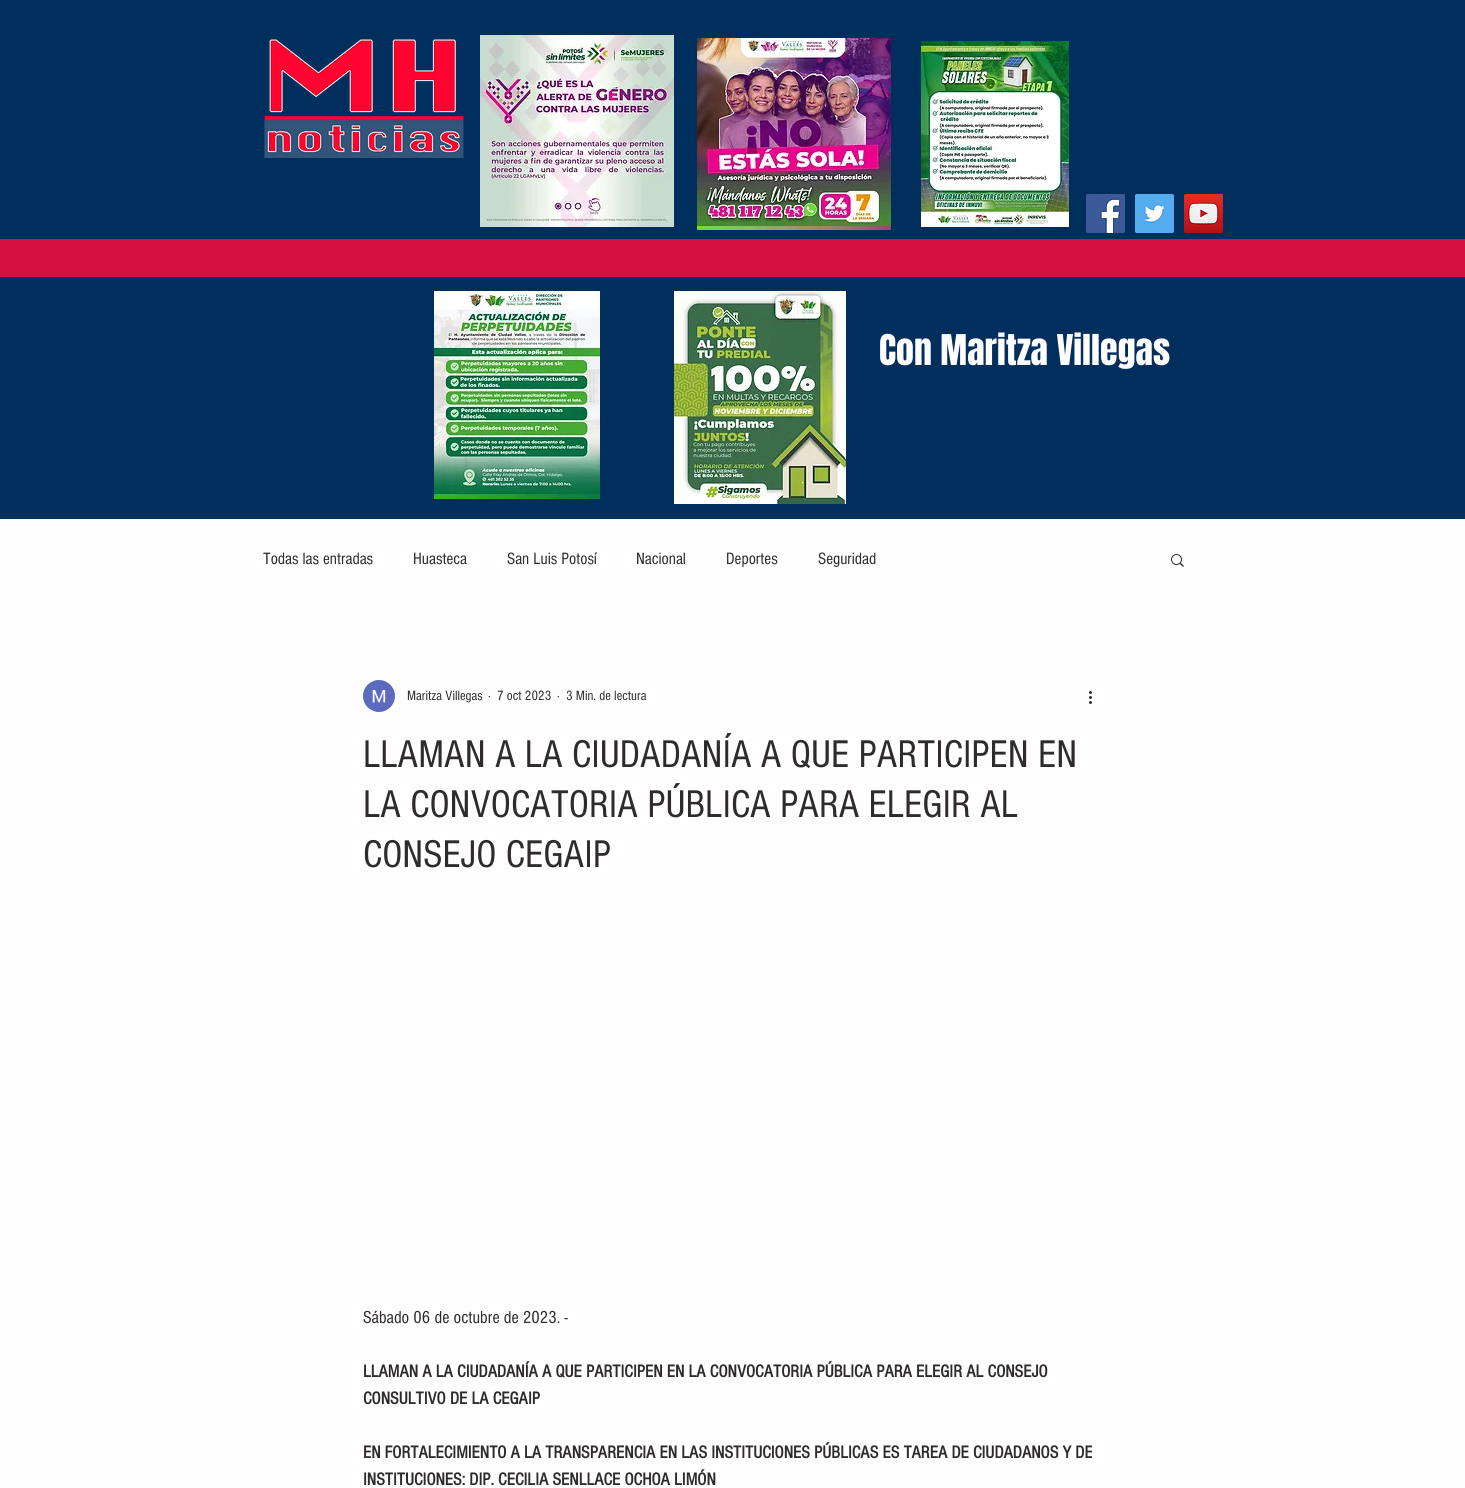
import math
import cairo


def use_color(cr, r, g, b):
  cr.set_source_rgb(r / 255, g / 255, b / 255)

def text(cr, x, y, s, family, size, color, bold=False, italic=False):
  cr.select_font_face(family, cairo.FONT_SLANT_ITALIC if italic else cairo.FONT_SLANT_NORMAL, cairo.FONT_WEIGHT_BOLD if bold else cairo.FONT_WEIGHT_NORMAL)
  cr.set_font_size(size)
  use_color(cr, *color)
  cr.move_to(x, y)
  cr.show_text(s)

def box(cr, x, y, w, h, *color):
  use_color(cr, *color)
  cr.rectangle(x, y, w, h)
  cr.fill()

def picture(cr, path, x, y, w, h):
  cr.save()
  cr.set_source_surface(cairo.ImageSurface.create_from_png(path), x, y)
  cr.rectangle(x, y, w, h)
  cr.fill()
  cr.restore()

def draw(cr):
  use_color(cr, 255, 253, 253)
  cr.paint()
  box(cr, 0, 0, 1465, 519, 0, 46, 93)
  picture(cr, "img_01.png", 264, 39, 200, 119)
  picture(cr, "img_02.png", 480, 35, 194, 192)
  picture(cr, "img_03.png", 697, 38, 194, 192)
  picture(cr, "img_04.png", 921, 41, 148, 186)
  picture(cr, "img_05.png", 1086, 194, 39, 39)
  picture(cr, "img_06.png", 1135, 194, 39, 39)
  picture(cr, "img_07.png", 1184, 194, 39, 39)
  box(cr, 0, 239, 1465, 38, 214, 16, 67)
  picture(cr, "img_08.png", 434, 291, 166, 208)
  picture(cr, "img_09.png", 674, 291, 172, 213)
  picture(cr, "img_10.png", 1171, 554, 13, 13)
  picture(cr, "img_11.png", 363, 680, 32, 32)
  picture(cr, "img_12.png", 1089, 691, 3, 13)
  text(cr, 879, 365, "Con Maritza Villegas", "Anton", 36, (255, 253, 253))
  text(cr, 263, 564, "Todas las entradas", "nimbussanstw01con", 17, (45, 43, 43))
  text(cr, 413, 564, "Huasteca", "nimbussanstw01con", 17, (45, 43, 43))
  text(cr, 507, 564, "San Luis Potosí", "nimbussanstw01con", 17, (45, 43, 43))
  text(cr, 636, 564, "Nacional", "nimbussanstw01con", 17, (45, 43, 43))
  text(cr, 726, 564, "Deportes", "nimbussanstw01con", 17, (45, 43, 43))
  text(cr, 818, 564, "Seguridad", "nimbussanstw01con", 17, (45, 43, 43))
  text(cr, 407, 700, "Maritza Villegas", "nimbussanstw01con", 14, (45, 43, 43))
  text(cr, 488, 700, "·", "nimbussanstw01con", 14, (45, 43, 43))
  text(cr, 497, 700, "7 oct 2023", "nimbussanstw01con", 14, (45, 43, 43))
  text(cr, 557, 700, "·", "nimbussanstw01con", 14, (45, 43, 43))
  text(cr, 566, 700, "3 Min. de lectura", "nimbussanstw01con", 14, (45, 43, 43))
  text(cr, 363, 767, "LLAMAN A LA CIUDADANÍA A QUE PARTICIPEN EN", "nimbussanstw01con", 40, (45, 43, 43))
  text(cr, 363, 817, "LA CONVOCATORIA PÚBLICA PARA ELEGIR AL", "nimbussanstw01con", 40, (45, 43, 43))
  text(cr, 363, 867, "CONSEJO CEGAIP", "nimbussanstw01con", 40, (45, 43, 43))
  text(cr, 363, 1323, "Sábado 06 de octubre de 2023. -", "nimbussanstw01con", 18, (45, 43, 43))
  text(cr, 363, 1377, "LLAMAN A LA CIUDADANÍA A QUE PARTICIPEN EN LA CONVOCATORIA PÚBLICA PARA ELEGIR AL CONSEJO", "nimbussanstw01con", 18, (45, 43, 43), bold=True)
  text(cr, 363, 1404, "CONSULTIVO DE LA CEGAIP", "nimbussanstw01con", 18, (45, 43, 43), bold=True)
  text(cr, 363, 1458, "EN FORTALECIMIENTO A LA TRANSPARENCIA EN LAS INSTITUCIONES PÚBLICAS ES TAREA DE CIUDADANOS Y DE", "nimbussanstw01con", 18, (45, 43, 43), bold=True)
  text(cr, 363, 1485, "INSTITUCIONES: DIP. CECILIA SENLLACE OCHOA LIMÓN", "nimbussanstw01con", 18, (45, 43, 43), bold=True)


surface = cairo.ImageSurface(cairo.FORMAT_RGB24, 1465, 1488)
cr = cairo.Context(surface)
options = cairo.FontOptions()
options.set_hint_metrics(cairo.HINT_METRICS_OFF)
options.set_hint_style(cairo.HINT_STYLE_NONE)
cr.set_font_options(options)
cr.set_miter_limit(4)
draw(cr)
surface.write_to_png("out.png")
